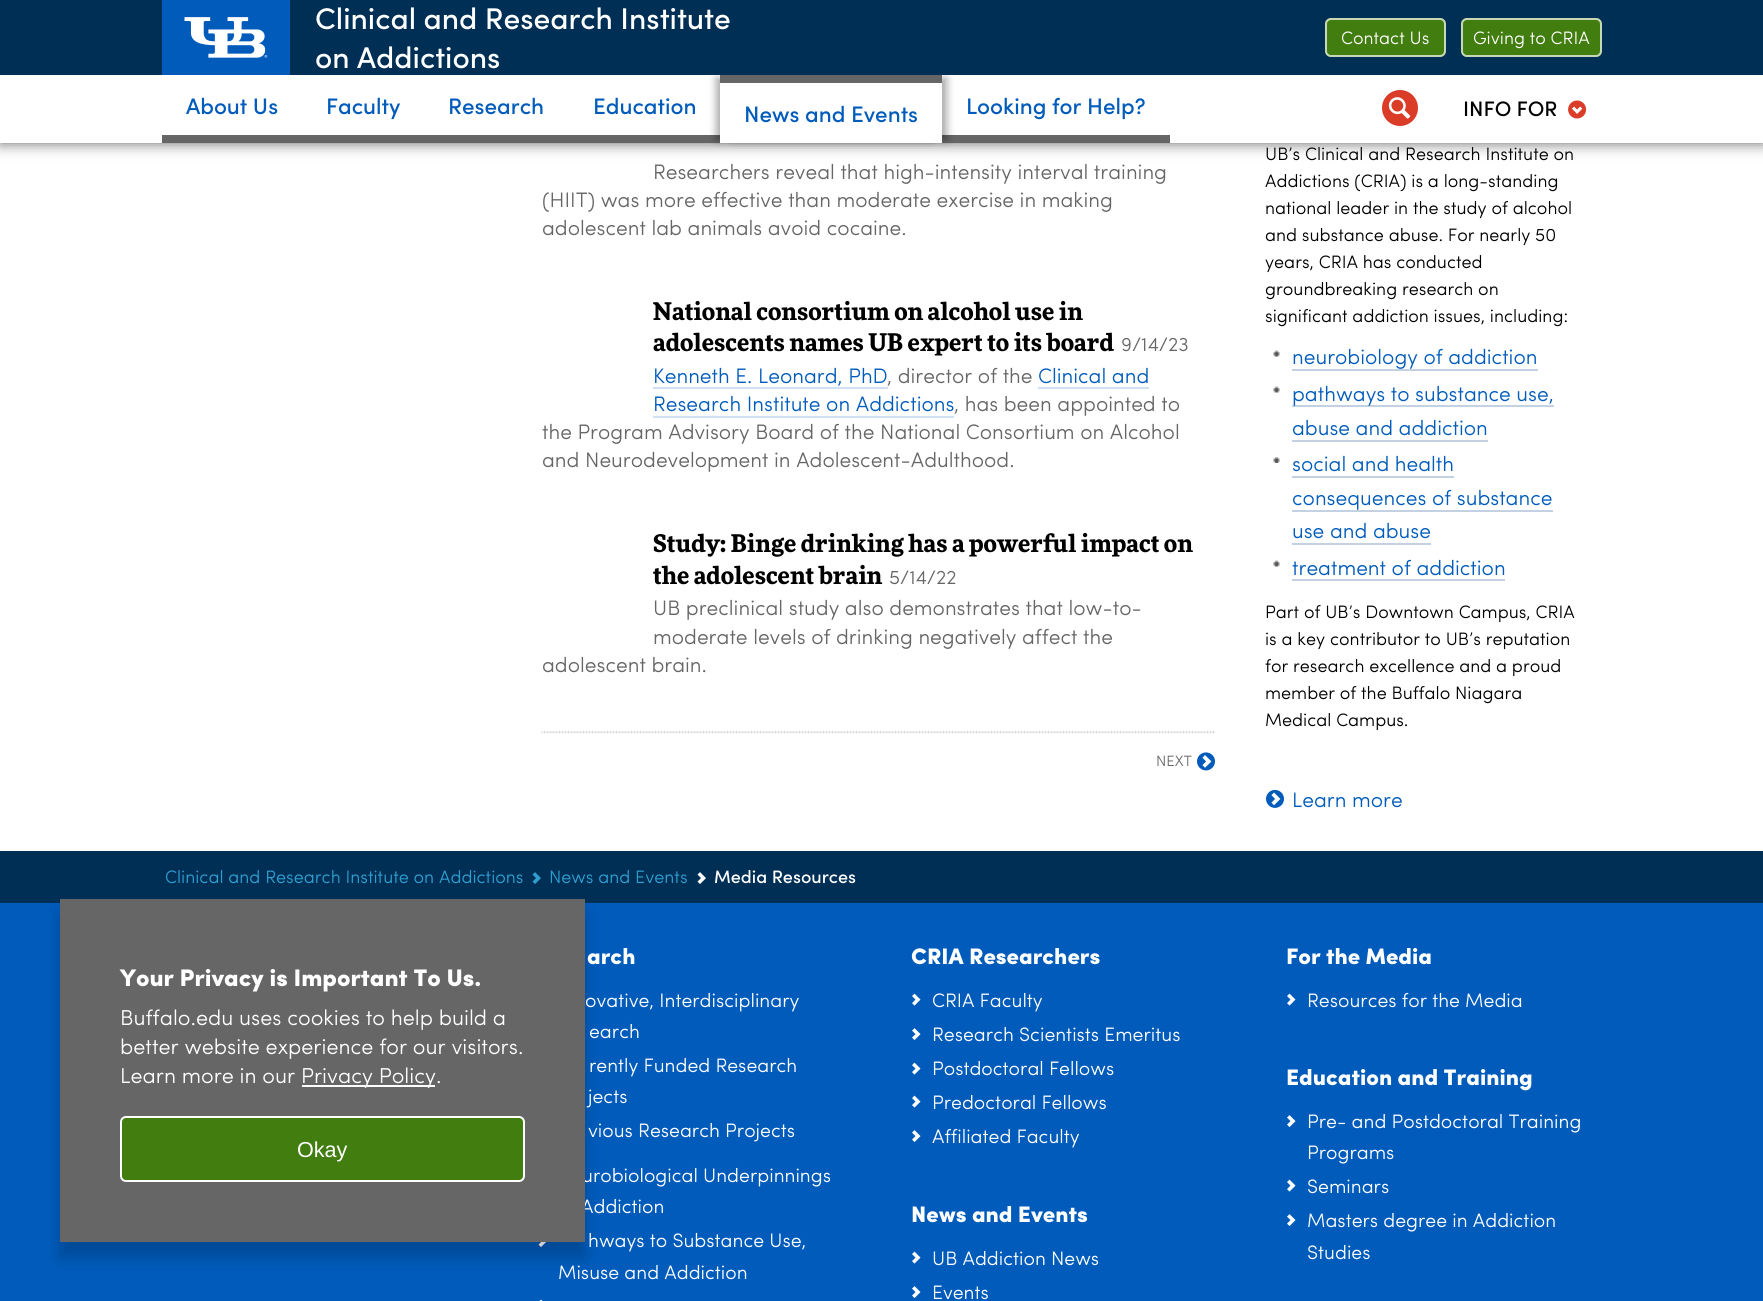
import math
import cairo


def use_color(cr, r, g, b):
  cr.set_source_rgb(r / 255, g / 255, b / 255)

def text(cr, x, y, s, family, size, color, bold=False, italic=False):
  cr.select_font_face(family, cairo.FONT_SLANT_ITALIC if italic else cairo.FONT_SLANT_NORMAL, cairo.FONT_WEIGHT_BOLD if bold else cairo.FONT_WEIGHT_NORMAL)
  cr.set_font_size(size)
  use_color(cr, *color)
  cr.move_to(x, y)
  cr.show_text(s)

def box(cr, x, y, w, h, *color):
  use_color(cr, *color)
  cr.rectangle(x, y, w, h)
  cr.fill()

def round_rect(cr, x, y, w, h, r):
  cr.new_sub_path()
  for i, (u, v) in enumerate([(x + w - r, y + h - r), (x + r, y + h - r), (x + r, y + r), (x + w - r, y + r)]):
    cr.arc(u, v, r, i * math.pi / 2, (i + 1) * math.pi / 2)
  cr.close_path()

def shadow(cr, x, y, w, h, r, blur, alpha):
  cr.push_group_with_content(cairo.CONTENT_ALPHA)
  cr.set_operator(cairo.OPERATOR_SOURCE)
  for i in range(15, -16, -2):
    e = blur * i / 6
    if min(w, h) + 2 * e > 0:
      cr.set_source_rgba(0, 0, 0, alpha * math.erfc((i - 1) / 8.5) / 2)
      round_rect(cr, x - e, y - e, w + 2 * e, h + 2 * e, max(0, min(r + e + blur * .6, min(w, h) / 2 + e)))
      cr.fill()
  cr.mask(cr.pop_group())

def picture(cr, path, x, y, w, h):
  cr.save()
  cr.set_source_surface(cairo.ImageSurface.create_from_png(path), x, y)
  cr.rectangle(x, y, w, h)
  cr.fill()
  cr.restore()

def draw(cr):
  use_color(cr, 0, 91, 187)
  cr.paint()
  box(cr, 0, 143, 1763, 708, 255, 255, 255)
  use_color(cr, 102, 102, 102)
  shadow(cr, 0, 75, 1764, 68, 0, 7.5, 1)
  box(cr, 0, 75, 1763, 68, 255, 255, 255)
  box(cr, 162, 135, 558, 8, 102, 102, 102)
  box(cr, 942, 135, 228, 8, 102, 102, 102)
  use_color(cr, 0, 0, 0)
  shadow(cr, 716, 78, 216, 62, 0, 4, 0.33)
  shadow(cr, 731, 78, 216, 62, 0, 4, 0.33)
  box(cr, 0, 0, 1763, 75, 0, 47, 86)
  box(cr, 162, 0, 128, 75, 0, 91, 187)
  picture(cr, "img_01.png", 184, 17, 84, 41)
  use_color(cr, 66, 125, 16)
  round_rect(cr, 1325, 18, 121, 39, 6)
  cr.fill()
  round_rect(cr, 1326, 19, 119, 37, 5)
  cr.set_source_rgba(1, 1, 1, 0.7)
  cr.stroke()
  use_color(cr, 66, 125, 16)
  round_rect(cr, 1461, 18, 141, 39, 6)
  cr.fill()
  round_rect(cr, 1462, 19, 139, 37, 5)
  cr.set_source_rgba(1, 1, 1, 0.7)
  cr.stroke()
  box(cr, 720, 83, 222, 60, 255, 255, 255)
  box(cr, 720, 75, 222, 8, 102, 102, 102)
  use_color(cr, 218, 60, 40)
  cr.arc(1400, 108, 18, 0, 2 * math.pi)
  cr.fill()
  picture(cr, "img_02.png", 1388, 97, 23, 22)
  picture(cr, "img_03.png", 1568, 100, 19, 19)
  box(cr, 653, 387, 235, 2, 209, 225, 243)
  box(cr, 1038, 387, 111, 2, 209, 225, 243)
  box(cr, 653, 416, 301, 2, 209, 225, 243)
  picture(cr, "img_04.png", 541, 731, 674, 3)
  picture(cr, "img_05.png", 1197, 752, 18, 19)
  picture(cr, "img_06.png", 1273, 350, 7, 7)
  box(cr, 1292, 369, 246, 2, 195, 209, 227)
  picture(cr, "img_06.png", 1273, 386, 7, 7)
  box(cr, 1292, 405, 262, 2, 195, 209, 227)
  box(cr, 1292, 440, 196, 2, 195, 209, 227)
  picture(cr, "img_07.png", 1273, 457, 7, 6)
  box(cr, 1292, 476, 162, 2, 195, 209, 227)
  box(cr, 1292, 510, 261, 2, 195, 209, 227)
  box(cr, 1292, 543, 139, 2, 195, 209, 227)
  picture(cr, "img_06.png", 1273, 560, 7, 7)
  box(cr, 1292, 579, 213, 2, 195, 209, 227)
  picture(cr, "img_08.png", 1266, 789, 18, 19)
  box(cr, 0, 851, 1763, 52, 0, 47, 86)
  picture(cr, "img_09.png", 532, 872, 9, 12)
  picture(cr, "img_10.png", 697, 872, 9, 12)
  picture(cr, "img_11.png", 538, 1242, 8, 5)
  picture(cr, "img_12.png", 539, 1299, 4, 2)
  picture(cr, "img_13.png", 912, 993, 9, 13)
  picture(cr, "img_14.png", 912, 1028, 9, 12)
  picture(cr, "img_13.png", 912, 1062, 9, 13)
  picture(cr, "img_13.png", 912, 1095, 9, 13)
  picture(cr, "img_14.png", 912, 1130, 9, 12)
  picture(cr, "img_13.png", 912, 1251, 9, 13)
  picture(cr, "img_14.png", 912, 1286, 9, 12)
  picture(cr, "img_13.png", 1287, 993, 9, 13)
  picture(cr, "img_14.png", 1287, 1115, 9, 12)
  picture(cr, "img_13.png", 1287, 1179, 9, 13)
  picture(cr, "img_14.png", 1287, 1214, 9, 12)
  use_color(cr, 0, 0, 0)
  shadow(cr, 60, 914, 525, 343, 0, 7.5, 0.2)
  text(cr, 315, 29, "Clinical and Research Institute", "Sofia Medium", 30, (255, 255, 255))
  text(cr, 315, 68, "on Addictions", "Sofia Medium", 30, (255, 255, 255))
  text(cr, 1341, 44, "Contact Us", "Sofia", 18, (255, 255, 255))
  text(cr, 1473, 44, "Giving to CRIA", "Sofia", 18, (255, 255, 255))
  text(cr, 186, 114, "About Us", "Sofia Medium", 22.5, (0, 91, 187))
  text(cr, 326, 114, "Faculty", "Sofia Medium", 22.5, (0, 91, 187))
  text(cr, 448, 114, "Research", "Sofia Medium", 22.5, (0, 91, 187))
  text(cr, 593, 114, "Education", "Sofia Medium", 22.5, (0, 91, 187))
  text(cr, 744, 122, "News and Events", "Sofia Medium", 22.5, (0, 91, 187))
  text(cr, 966, 114, "Looking for Help?", "Sofia Medium", 22.5, (0, 91, 187))
  text(cr, 1463, 116, "INFO FOR", "Sofia Medium", 21, (0, 0, 0))
  text(cr, 653, 179, "Researchers reveal that high-intensity interval training", "Sofia", 21, (102, 102, 102))
  text(cr, 542, 207, "(HIIT) was more effective than moderate exercise in making", "Sofia", 21, (102, 102, 102))
  text(cr, 542, 235, "adolescent lab animals avoid cocaine.", "Sofia", 21, (102, 102, 102))
  text(cr, 653, 320, "National consortium on alcohol use in", "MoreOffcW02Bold", 24, (0, 0, 0), bold=True)
  text(cr, 653, 351, "adolescents names UB expert to its board", "MoreOffcW02Bold", 24, (0, 0, 0), bold=True)
  text(cr, 1121, 351, "9/14/23", "Sofia", 19.5, (102, 102, 102))
  text(cr, 653, 383, "Kenneth E. Leonard, PhD", "Sofia", 21, (0, 91, 187))
  text(cr, 887, 383, ", director of the", "Sofia", 21, (102, 102, 102))
  text(cr, 1038, 383, "Clinical and", "Sofia", 21, (0, 91, 187))
  text(cr, 653, 411, "Research Institute on Addictions", "Sofia", 21, (0, 91, 187))
  text(cr, 954, 411, ", has been appointed to", "Sofia", 21, (102, 102, 102))
  text(cr, 542, 439, "the Program Advisory Board of the National Consortium on Alcohol", "Sofia", 21, (102, 102, 102))
  text(cr, 542, 467, "and Neurodevelopment in Adolescent-Adulthood.", "Sofia", 21, (102, 102, 102))
  text(cr, 653, 552, "Study: Binge drinking has a powerful impact on", "MoreOffcW02Bold", 24, (0, 0, 0), bold=True)
  text(cr, 653, 584, "the adolescent brain", "MoreOffcW02Bold", 24, (0, 0, 0), bold=True)
  text(cr, 889, 584, "5/14/22", "Sofia", 19.5, (102, 102, 102))
  text(cr, 653, 615, "UB preclinical study also demonstrates that low-to-", "Sofia", 21, (102, 102, 102))
  text(cr, 653, 644, "moderate levels of drinking negatively affect the", "Sofia", 21, (102, 102, 102))
  text(cr, 542, 672, "adolescent brain.", "Sofia", 21, (102, 102, 102))
  text(cr, 1156, 766, "NEXT", "Sofia", 15, (102, 102, 102))
  text(cr, 1265, 160, "UB’s Clinical and Research Institute on", "Sofia", 18, (0, 0, 0))
  text(cr, 1265, 187, "Addictions (CRIA) is a long-standing", "Sofia", 18, (0, 0, 0))
  text(cr, 1265, 214, "national leader in the study of alcohol", "Sofia", 18, (0, 0, 0))
  text(cr, 1265, 241, "and substance abuse. For nearly 50", "Sofia", 18, (0, 0, 0))
  text(cr, 1265, 268, "years, CRIA has conducted", "Sofia", 18, (0, 0, 0))
  text(cr, 1265, 295, "groundbreaking research on", "Sofia", 18, (0, 0, 0))
  text(cr, 1265, 322, "significant addiction issues, including:", "Sofia", 18, (0, 0, 0))
  text(cr, 1292, 364, "neurobiology of addiction", "Sofia", 21, (0, 91, 187))
  text(cr, 1292, 401, "pathways to substance use,", "Sofia", 21, (0, 91, 187))
  text(cr, 1292, 435, "abuse and addiction", "Sofia", 21, (0, 91, 187))
  text(cr, 1292, 471, "social and health", "Sofia", 21, (0, 91, 187))
  text(cr, 1292, 505, "consequences of substance", "Sofia", 21, (0, 91, 187))
  text(cr, 1292, 538, "use and abuse", "Sofia", 21, (0, 91, 187))
  text(cr, 1292, 575, "treatment of addiction", "Sofia", 21, (0, 91, 187))
  text(cr, 1265, 618, "Part of UB’s Downtown Campus, CRIA", "Sofia", 18, (0, 0, 0))
  text(cr, 1265, 645, "is a key contributor to UB’s reputation", "Sofia", 18, (0, 0, 0))
  text(cr, 1265, 672, "for research excellence and a proud", "Sofia", 18, (0, 0, 0))
  text(cr, 1265, 699, "member of the Buffalo Niagara", "Sofia", 18, (0, 0, 0))
  text(cr, 1265, 726, "Medical Campus.", "Sofia", 18, (0, 0, 0))
  text(cr, 1292, 807, "Learn more", "Sofia", 21, (0, 91, 187))
  text(cr, 165, 883, "Clinical and Research Institute on Addictions", "Sofia", 18, (47, 159, 208))
  text(cr, 549, 883, "News and Events", "Sofia", 18, (47, 159, 208))
  text(cr, 714, 883, "Media Resources", "Sofia Medium", 18, (255, 255, 255))
  text(cr, 587, 964, "arch", "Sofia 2", 22.5, (255, 255, 255))
  text(cr, 585, 1007, "ovative, Interdisciplinary", "Sofia", 19.5, (255, 255, 255))
  text(cr, 589, 1038, "earch", "Sofia", 19.5, (255, 255, 255))
  text(cr, 589, 1072, "rently Funded Research", "Sofia", 19.5, (255, 255, 255))
  text(cr, 588, 1103, "jects", "Sofia", 19.5, (255, 255, 255))
  text(cr, 588, 1137, "vious Research Projects", "Sofia", 19.5, (255, 255, 255))
  text(cr, 582, 1182, "urobiological Underpinnings", "Sofia", 19.5, (255, 255, 255))
  text(cr, 581, 1213, "Addiction", "Sofia", 19.5, (255, 255, 255))
  text(cr, 588, 1247, "hways to Substance Use,", "Sofia", 19.5, (255, 255, 255))
  text(cr, 558, 1279, "Misuse and Addiction", "Sofia", 19.5, (255, 255, 255))
  text(cr, 911, 964, "CRIA Researchers", "Sofia 2", 22.5, (255, 255, 255))
  text(cr, 932, 1007, "CRIA Faculty", "Sofia", 19.5, (255, 255, 255))
  text(cr, 932, 1041, "Research Scientists Emeritus", "Sofia", 19.5, (255, 255, 255))
  text(cr, 932, 1075, "Postdoctoral Fellows", "Sofia", 19.5, (255, 255, 255))
  text(cr, 932, 1109, "Predoctoral Fellows", "Sofia", 19.5, (255, 255, 255))
  text(cr, 932, 1143, "Affiliated Faculty", "Sofia", 19.5, (255, 255, 255))
  text(cr, 911, 1222, "News and Events", "Sofia 2", 22.5, (255, 255, 255))
  text(cr, 932, 1265, "UB Addiction News", "Sofia", 19.5, (255, 255, 255))
  text(cr, 932, 1299, "Events", "Sofia", 19.5, (255, 255, 255))
  text(cr, 1286, 964, "For the Media", "Sofia 2", 22.5, (255, 255, 255))
  text(cr, 1307, 1007, "Resources for the Media", "Sofia", 19.5, (255, 255, 255))
  text(cr, 1286, 1085, "Education and Training", "Sofia 2", 22.5, (255, 255, 255))
  text(cr, 1307, 1128, "Pre- and Postdoctoral Training", "Sofia", 19.5, (255, 255, 255))
  text(cr, 1307, 1159, "Programs", "Sofia", 19.5, (255, 255, 255))
  text(cr, 1307, 1193, "Seminars", "Sofia", 19.5, (255, 255, 255))
  text(cr, 1307, 1227, "Masters degree in Addiction", "Sofia", 19.5, (255, 255, 255))
  text(cr, 1307, 1259, "Studies", "Sofia", 19.5, (255, 255, 255))
  box(cr, 60, 899, 525, 343, 102, 102, 102)
  text(cr, 120, 986, "Your Privacy is Important To Us.", "Sofia 2", 24, (255, 255, 255))
  text(cr, 120, 1025, "Buffalo.edu uses cookies to help build a", "Sofia", 21.6, (255, 255, 255))
  text(cr, 120, 1054, "better website experience for our visitors.", "Sofia", 21.6, (255, 255, 255))
  text(cr, 120, 1083, "Learn more in our", "Sofia", 21.6, (255, 255, 255))
  box(cr, 302, 1085, 133, 2, 255, 255, 255)
  text(cr, 301, 1083, "Privacy Policy.", "Sofia", 21.6, (255, 255, 255))
  use_color(cr, 66, 125, 16)
  round_rect(cr, 121, 1117, 403, 64, 5)
  cr.fill_preserve()
  use_color(cr, 255, 255, 255)
  cr.stroke()
  text(cr, 297, 1157, "Okay", "Liberation Sans", 21.6, (255, 255, 255))


surface = cairo.ImageSurface(cairo.FORMAT_RGB24, 1763, 1301)
cr = cairo.Context(surface)
options = cairo.FontOptions()
options.set_hint_metrics(cairo.HINT_METRICS_OFF)
options.set_hint_style(cairo.HINT_STYLE_NONE)
cr.set_font_options(options)
cr.set_miter_limit(4)
draw(cr)
surface.write_to_png("out.png")
